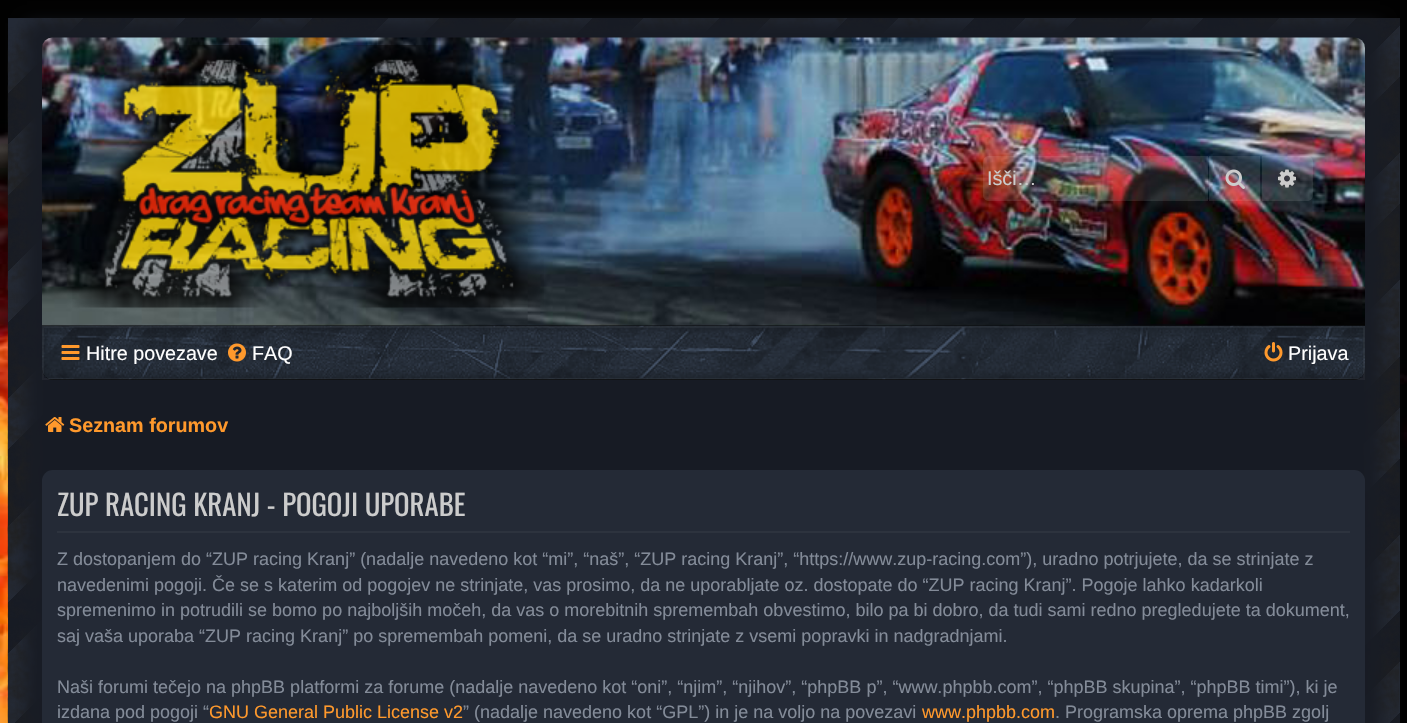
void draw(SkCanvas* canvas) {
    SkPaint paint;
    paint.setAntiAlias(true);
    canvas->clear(0xFFFFFFFF);
    canvas->drawImageRect(SkImages::DeferredFromEncodedData(SkData::MakeFromFileName("img1.png")), SkRect::MakeXYWH(0, 0, 1407, 723), SkSamplingOptions());
    {
        const SkColor colors[] = {0xFF242A36, 0xFF242A36, 0xFF171B24, 0xFF171B24, 0xFF242A36, 0xFF242A36, 0xFF171B24, 0xFF171B24, 0xFF242A36, 0xFF242A36, 0xFF171B24, 0xFF171B24, 0xFF242A36, 0xFF242A36, 0xFF171B24, 0xFF171B24, 0xFF242A36, 0xFF242A36, 0xFF171B24, 0xFF171B24, 0xFF242A36, 0xFF242A36, 0xFF171B24, 0xFF171B24, 0xFF242A36, 0xFF242A36, 0xFF171B24, 0xFF171B24, 0xFF242A36, 0xFF242A36, 0xFF171B24, 0xFF171B24, 0xFF242A36, 0xFF242A36, 0xFF171B24, 0xFF171B24, 0xFF242A36, 0xFF242A36, 0xFF171B24, 0xFF171B24, 0xFF242A36, 0xFF242A36, 0xFF171B24, 0xFF171B24, 0xFF242A36, 0xFF242A36, 0xFF171B24, 0xFF171B24, 0xFF242A36, 0xFF242A36, 0xFF171B24, 0xFF171B24, 0xFF242A36, 0xFF242A36, 0xFF171B24, 0xFF171B24, 0xFF242A36, 0xFF242A36, 0xFF171B24, 0xFF171B24, 0xFF242A36, 0xFF242A36, 0xFF171B24, 0xFF171B24, 0xFF242A36, 0xFF242A36, 0xFF171B24, 0xFF171B24, 0xFF242A36, 0xFF242A36, 0xFF171B24, 0xFF171B24, 0xFF242A36, 0xFF242A36, 0xFF171B24, 0xFF171B24, 0xFF242A36, 0xFF242A36, 0xFF171B24, 0xFF171B24};
        const float stops[] = {0, 0.03f, 0.03f, 0.05f, 0.05f, 0.07f, 0.07f, 0.1f, 0.1f, 0.12f, 0.12f, 0.15f, 0.15f, 0.17f, 0.17f, 0.2f, 0.2f, 0.23f, 0.23f, 0.25f, 0.25f, 0.28f, 0.28f, 0.3f, 0.3f, 0.33f, 0.33f, 0.35f, 0.35f, 0.38f, 0.38f, 0.4f, 0.4f, 0.42f, 0.42f, 0.45f, 0.45f, 0.47f, 0.47f, 0.5f, 0.5f, 0.53f, 0.53f, 0.55f, 0.55f, 0.57f, 0.57f, 0.6f, 0.6f, 0.62f, 0.62f, 0.65f, 0.65f, 0.68f, 0.68f, 0.7f, 0.7f, 0.72f, 0.72f, 0.75f, 0.75f, 0.78f, 0.78f, 0.8f, 0.8f, 0.82f, 0.82f, 0.85f, 0.85f, 0.88f, 0.88f, 0.9f, 0.9f, 0.93f, 0.93f, 0.95f, 0.95f, 0.97f, 0.97f, 1};
        const SkPoint ends[] = {{91, -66}, {1364, 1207}};
        paint.setShader(SkGradientShader::MakeLinear(ends, colors, stops, 80, SkTileMode::kClamp));
        paint.setAlpha(255);
    }
    canvas->drawRect(SkRect::MakeXYWH(8, 18, 1392, 705), paint);
    canvas->drawImageRect(SkImages::DeferredFromEncodedData(SkData::MakeFromFileName("img2.png")), SkRect::MakeXYWH(7, 18, 1393, 705), SkSamplingOptions());
    paint.setShader(nullptr);
    paint.setColor(0xFF171B24);
    paint.setMaskFilter(SkMaskFilter::MakeBlur(kNormal_SkBlurStyle, 7.5f));
    canvas->drawRect(SkRect::MakeXYWH(27, 23, 1353, 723), paint);
    paint.setMaskFilter(nullptr);
    paint.setColor(0xFF000000);
    canvas->drawPath(SkPathBuilder().moveTo(53, 38).lineTo(1354, 38).cubicTo(1360, 38, 1365, 43, 1365, 49).lineTo(1365, 326).lineTo(42, 326).lineTo(42, 49).cubicTo(42, 43, 47, 38, 53, 38).close().detach(), paint);
    canvas->drawImageRect(SkImages::DeferredFromEncodedData(SkData::MakeFromFileName("img3.png")), SkRect::MakeXYWH(42, 37, 1323, 289), SkSamplingOptions());
    canvas->drawImageRect(SkImages::DeferredFromEncodedData(SkData::MakeFromFileName("img4.png")), SkRect::MakeXYWH(72, 45, 472, 263), SkSamplingOptions());
    paint.setColor(0x1AFFFFFF);
    canvas->drawPath(SkPathBuilder().moveTo(989, 156).lineTo(1208, 156).lineTo(1208, 201).lineTo(989, 201).cubicTo(985.5f, 201, 983, 198.5f, 983, 195).lineTo(983, 162).cubicTo(983, 158.5f, 985.5f, 156, 989, 156).close().detach(), paint);
    SkFont font1(fontMgr->matchFamilyStyle("Liberation Sans", SkFontStyle::Normal()), 19.75f);
    font1.setSubpixel(true);
    paint.setColor(0xFFCCCCCC);
    canvas->drawString("Išči…", 987, 185, font1, paint);
    paint.setColor(0x1AFFFFFF);
    canvas->drawRect(SkRect::MakeXYWH(1209, 156, 51, 45), paint);
    canvas->drawImageRect(SkImages::DeferredFromEncodedData(SkData::MakeFromFileName("img5.png")), SkRect::MakeXYWH(1225, 169, 20, 20), SkSamplingOptions());
    canvas->drawPath(SkPathBuilder().moveTo(1262, 156).lineTo(1307, 156).cubicTo(1310.5f, 156, 1313, 158.5f, 1313, 162).lineTo(1313, 195).cubicTo(1313, 198.5f, 1310.5f, 201, 1307, 201).lineTo(1262, 201).close().detach(), paint);
    canvas->drawImageRect(SkImages::DeferredFromEncodedData(SkData::MakeFromFileName("img6.png")), SkRect::MakeXYWH(1278, 169, 18, 19), SkSamplingOptions());
    paint.setColor(0xFF000000);
    canvas->drawPath(SkPathBuilder().moveTo(42, 326).lineTo(1365, 326).lineTo(1365, 369).cubicTo(1365, 375, 1360, 380, 1354, 380).lineTo(53, 380).cubicTo(47, 380, 42, 375, 42, 369).close().detach(), paint);
    canvas->drawImageRect(SkImages::DeferredFromEncodedData(SkData::MakeFromFileName("img7.png")), SkRect::MakeXYWH(42, 325, 1323, 55), SkSamplingOptions());
    paint.setStyle(SkPaint::kStroke_Style);
    paint.setStrokeWidth(2);
    paint.setColor(0x0AFFFFFF);
    canvas->drawRect(SkRect::MakeXYWH(43, 327, 1321, 52), paint);
    canvas->drawImageRect(SkImages::DeferredFromEncodedData(SkData::MakeFromFileName("img8.png")), SkRect::MakeXYWH(61, 345, 19, 15), SkSamplingOptions());
    paint.setStyle(SkPaint::kFill_Style);
    paint.setColor(0xFFFFFFFF);
    canvas->drawString("Hitre povezave", 86, 360, font1, paint);
    canvas->drawImageRect(SkImages::DeferredFromEncodedData(SkData::MakeFromFileName("img9.png")), SkRect::MakeXYWH(228, 343, 18, 19), SkSamplingOptions());
    canvas->drawString("FAQ", 252, 360, font1, paint);
    canvas->drawImageRect(SkImages::DeferredFromEncodedData(SkData::MakeFromFileName("img10.png")), SkRect::MakeXYWH(1264, 342, 19, 20), SkSamplingOptions());
    canvas->drawString("Prijava", 1288, 360, font1, paint);
    canvas->drawImageRect(SkImages::DeferredFromEncodedData(SkData::MakeFromFileName("img11.png")), SkRect::MakeXYWH(45, 417, 20, 15), SkSamplingOptions());
    SkFont font2(fontMgr->matchFamilyStyle("Liberation Sans", SkFontStyle::Bold()), 19.75f);
    font2.setSubpixel(true);
    paint.setColor(0xFFFF992C);
    canvas->drawString("Seznam forumov", 69, 432, font2, paint);
    paint.setColor(0xFF242A36);
    canvas->drawRoundRect(SkRect::MakeXYWH(42, 470, 1323, 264), 11, 11, paint);
    paint.setColor(0xFF2D333E);
    canvas->drawRect(SkRect::MakeXYWH(57, 531, 1293, 2), paint);
    SkFont font3(fontMgr->matchFamilyStyle("Oswald", SkFontStyle::Normal()), 28.75f);
    font3.setSubpixel(true);
    paint.setColor(0xFFCCCCCC);
    canvas->drawString("ZUP RACING KRANJ - POGOJI UPORABE", 57, 516, font3, paint);
    SkFont font4(fontMgr->matchFamilyStyle("Liberation Sans", SkFontStyle::Normal()), 18);
    font4.setSubpixel(true);
    paint.setColor(0xFF838B98);
    canvas->drawString("Z dostopanjem do “ZUP racing Kranj” (nadalje navedeno kot “mi”, “naš”, “ZUP racing Kranj”, “https://www.zup-racing.com”), uradno potrjujete, da se strinjate z", 57, 565, font4, paint);
    canvas->drawString("navedenimi pogoji. Če se s katerim od pogojev ne strinjate, vas prosimo, da ne uporabljate oz. dostopate do “ZUP racing Kranj”. Pogoje lahko kadarkoli", 57, 591, font4, paint);
    canvas->drawString("spremenimo in potrudili se bomo po najboljših močeh, da vas o morebitnih spremembah obvestimo, bilo pa bi dobro, da tudi sami redno pregledujete ta dokument,", 57, 616, font4, paint);
    canvas->drawString("saj vaša uporaba “ZUP racing Kranj” po spremembah pomeni, da se uradno strinjate z vsemi popravki in nadgradnjami.", 57, 642, font4, paint);
    canvas->drawString("Naši forumi tečejo na phpBB platformi za forume (nadalje navedeno kot “oni”, “njim”, “njihov”, “phpBB p”, “www.phpbb.com”, “phpBB skupina”, “phpBB timi”), ki je", 57, 693, font4, paint);
    canvas->drawString("izdana pod pogoji “", 57, 718, font4, paint);
    paint.setColor(0xFFFF992C);
    canvas->drawString("GNU General Public License v2", 209, 718, font4, paint);
    paint.setColor(0xFF838B98);
    canvas->drawString("” (nadalje navedeno kot “GPL”) in je na voljo na povezavi", 463, 718, font4, paint);
    paint.setColor(0xFFFF992C);
    canvas->drawString("www.phpbb.com", 922, 718, font4, paint);
    paint.setColor(0xFF838B98);
    canvas->drawString(". Programska oprema phpBB zgolj", 1055, 718, font4, paint);
}
